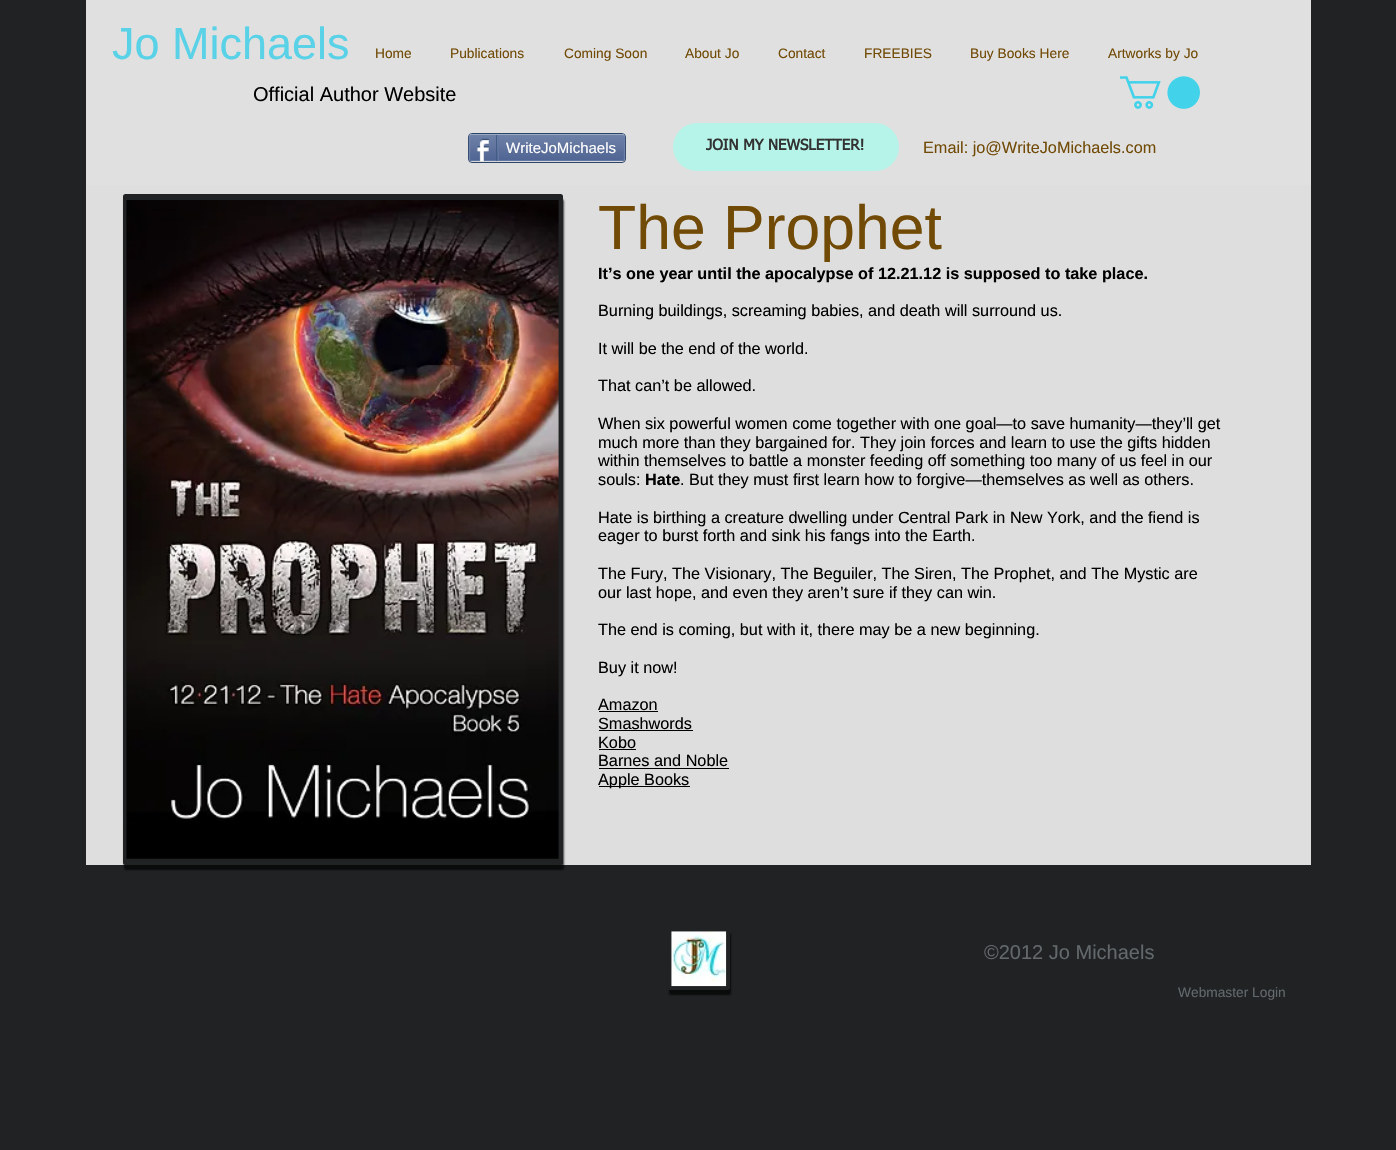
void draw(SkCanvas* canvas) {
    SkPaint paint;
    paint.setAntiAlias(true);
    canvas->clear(0xFF202223);
    paint.setColor(0xFFE0E0E0);
    canvas->drawRect(SkRect::MakeXYWH(86, 0, 1225, 185), paint);
    SkFont font1(fontMgr->matchFamilyStyle("Liberation Sans", SkFontStyle::Normal()), 45);
    font1.setSubpixel(true);
    paint.setColor(0xFF59D2E7);
    canvas->drawString("Jo Michaels", 112, 59, font1, paint);
    SkFont font2(fontMgr->matchFamilyStyle("Liberation Sans", SkFontStyle::Normal()), 13.75f);
    font2.setSubpixel(true);
    paint.setColor(0xFF714A05);
    canvas->drawString("Home", 375, 58, font2, paint);
    canvas->drawString("Publications", 450, 58, font2, paint);
    canvas->drawString("Coming Soon", 564, 58, font2, paint);
    canvas->drawString("About Jo", 685, 58, font2, paint);
    canvas->drawString("Contact", 778, 58, font2, paint);
    canvas->drawString("FREEBIES", 864, 58, font2, paint);
    canvas->drawString("Buy Books Here", 970, 58, font2, paint);
    canvas->drawString("Artworks by Jo", 1108, 58, font2, paint);
    SkFont font3(fontMgr->matchFamilyStyle("Liberation Sans", SkFontStyle::Normal()), 20);
    font3.setSubpixel(true);
    paint.setColor(0xFF000000);
    canvas->drawString("Official Author Website", 253, 101, font3, paint);
    canvas->drawImageRect(SkImages::DeferredFromEncodedData(SkData::MakeFromFileName("img1.png")), SkRect::MakeXYWH(1120, 76, 80, 33), SkSamplingOptions());
    paint.setStyle(SkPaint::kStroke_Style);
    paint.setStrokeWidth(1);
    paint.setColor(0xFF2D4565);
    canvas->drawRoundRect(SkRect::MakeXYWH(468.5f, 133.5f, 157, 29), 3.5f, 3.5f, paint);
    canvas->drawImageRect(SkImages::DeferredFromEncodedData(SkData::MakeFromFileName("img2.png")), SkRect::MakeXYWH(468, 135, 157, 27), SkSamplingOptions());
    paint.setStrokeWidth(1.2f);
    paint.setColor(0xFF9AABC6);
    canvas->drawPath(SkPathBuilder().moveTo(470, 135).lineTo(471, 134.5f).lineTo(622.5f, 134.5f).lineTo(624, 135).detach(), paint);
    paint.setColor(0xFF6F83AD);
    canvas->drawPath(SkPathBuilder().moveTo(624, 135).lineTo(624.5f, 136).lineTo(624.5f, 159).lineTo(624, 160).detach(), paint);
    paint.setColor(0xFF6176A3);
    canvas->drawPath(SkPathBuilder().moveTo(624, 160).lineTo(622.5f, 160.5f).lineTo(471, 160.5f).lineTo(470, 160).detach(), paint);
    paint.setColor(0xFF6F83AD);
    canvas->drawPath(SkPathBuilder().moveTo(470, 160).lineTo(469.5f, 159).lineTo(469.5f, 136).lineTo(470, 135).detach(), paint);
    canvas->drawImageRect(SkImages::DeferredFromEncodedData(SkData::MakeFromFileName("img3.png")), SkRect::MakeXYWH(476, 138, 13, 24), SkSamplingOptions());
    paint.setStyle(SkPaint::kFill_Style);
    paint.setColor(0xFF425E85);
    canvas->drawRect(SkRect::MakeXYWH(496, 135, 1, 26), paint);
    SkFont font4(fontMgr->matchFamilyStyle("Liberation Sans", SkFontStyle::Normal()), 15);
    font4.setSubpixel(true);
    paint.setColor(0xFFFFFFFF);
    canvas->drawString("WriteJoMichaels", 506, 153, font4, paint);
    paint.setColor(0xFF6176A3);
    canvas->drawRect(SkRect::MakeXYWH(498, 135, 1, 25), paint);
    paint.setColor(0xFFB6F3E8);
    canvas->drawRoundRect(SkRect::MakeXYWH(673, 123, 226, 48), 24, 24, paint);
    SkFont font5(fontMgr->matchFamilyStyle("tahoma", SkFontStyle::Bold()), 15);
    font5.setSubpixel(true);
    paint.setColor(0xFF323232);
    canvas->drawString("JOIN MY NEWSLETTER!", 706, 150, font5, paint);
    SkFont font6(fontMgr->matchFamilyStyle("Liberation Sans", SkFontStyle::Normal()), 16.25f);
    font6.setSubpixel(true);
    paint.setColor(0xFF714A05);
    canvas->drawString("Email: jo@WriteJoMichaels.com", 923, 153, font6, paint);
    paint.setColor(0xFFDEDEDE);
    canvas->drawRect(SkRect::MakeXYWH(86, 185, 1225, 680), paint);
    paint.setColor(0xB3000000);
    paint.setMaskFilter(SkMaskFilter::MakeBlur(kNormal_SkBlurStyle, 1));
    canvas->drawRoundRect(SkRect::MakeXYWH(124, 199, 440, 671), 2.5f, 2.5f, paint);
    paint.setMaskFilter(nullptr);
    paint.setColor(0xFF202223);
    canvas->drawRoundRect(SkRect::MakeXYWH(125, 196, 436, 667), 0.5f, 0.5f, paint);
    paint.setStyle(SkPaint::kStroke_Style);
    paint.setStrokeWidth(4);
    canvas->drawRoundRect(SkRect::MakeXYWH(125, 196, 436, 667), 0.5f, 0.5f, paint);
    canvas->drawImageRect(SkImages::DeferredFromEncodedData(SkData::MakeFromFileName("img4.png")), SkRect::MakeXYWH(126, 200, 433, 659), SkSamplingOptions());
    SkFont font7(fontMgr->matchFamilyStyle("Liberation Sans", SkFontStyle::Normal()), 62.5f);
    font7.setSubpixel(true);
    paint.setStyle(SkPaint::kFill_Style);
    paint.setColor(0xFF714A05);
    canvas->drawString("The Prophet", 598, 249, font7, paint);
    SkFont font8(fontMgr->matchFamilyStyle("Liberation Sans", SkFontStyle::Bold()), 16.25f);
    font8.setSubpixel(true);
    paint.setColor(0xFF000000);
    canvas->drawString("It’s one year until the apocalypse of 12.21.12 is supposed to take place.", 598, 279, font8, paint);
    canvas->drawString("Burning buildings, screaming babies, and death will surround us.", 598, 316, font6, paint);
    canvas->drawString("It will be the end of the world.", 598, 354, font6, paint);
    canvas->drawString("That can’t be allowed.", 598, 391, font6, paint);
    canvas->drawString("When six powerful women come together with one goal—to save humanity—they’ll get", 598, 429, font6, paint);
    canvas->drawString("much more than they bargained for. They join forces and learn to use the gifts hidden", 598, 448, font6, paint);
    canvas->drawString("within themselves to battle a monster feeding off something too many of us feel in our", 598, 466, font6, paint);
    canvas->drawString("souls:", 598, 485, font6, paint);
    canvas->drawString("Hate", 645, 485, font8, paint);
    canvas->drawString(". But they must first learn how to forgive—themselves as well as others.", 680, 485, font6, paint);
    canvas->drawString("Hate is birthing a creature dwelling under Central Park in New York, and the fiend is", 598, 523, font6, paint);
    canvas->drawString("eager to burst forth and sink his fangs into the Earth.", 598, 541, font6, paint);
    canvas->drawString("The Fury, The Visionary, The Beguiler, The Siren, The Prophet, and The Mystic are", 598, 579, font6, paint);
    canvas->drawString("our last hope, and even they aren’t sure if they can win.", 598, 598, font6, paint);
    canvas->drawString("The end is coming, but with it, there may be a new beginning.", 598, 635, font6, paint);
    canvas->drawString("Buy it now!", 598, 673, font6, paint);
    canvas->drawString("Amazon", 598, 710, font6, paint);
    canvas->drawRect(SkRect::MakeXYWH(599, 711, 59, 1), paint);
    canvas->drawString("Smashwords", 598, 729, font6, paint);
    canvas->drawRect(SkRect::MakeXYWH(599, 730, 94, 1), paint);
    canvas->drawString("Kobo", 598, 748, font6, paint);
    canvas->drawRect(SkRect::MakeXYWH(599, 749, 37, 1), paint);
    canvas->drawString("Barnes and Noble", 598, 766, font6, paint);
    canvas->drawRect(SkRect::MakeXYWH(599, 768, 130, 1), paint);
    canvas->drawRect(SkRect::MakeXYWH(599, 786, 91, 1), paint);
    canvas->drawString("Apple Books", 598, 785, font6, paint);
    paint.setColor(0xB3000000);
    paint.setMaskFilter(SkMaskFilter::MakeBlur(kNormal_SkBlurStyle, 1));
    canvas->drawRoundRect(SkRect::MakeXYWH(669, 933, 62, 62), 2.5f, 2.5f, paint);
    paint.setMaskFilter(nullptr);
    paint.setStyle(SkPaint::kStroke_Style);
    paint.setColor(0xFF202223);
    canvas->drawRoundRect(SkRect::MakeXYWH(670, 930, 58, 58), 0.5f, 0.5f, paint);
    canvas->drawImageRect(SkImages::DeferredFromEncodedData(SkData::MakeFromFileName("img5.png")), SkRect::MakeXYWH(671, 931, 56, 56), SkSamplingOptions());
    paint.setStyle(SkPaint::kFill_Style);
    paint.setColor(0xFF62686B);
    canvas->drawString("©2012 Jo Michaels", 984, 959, font3, paint);
    canvas->drawString("Webmaster Login", 1178, 997, font2, paint);
}
